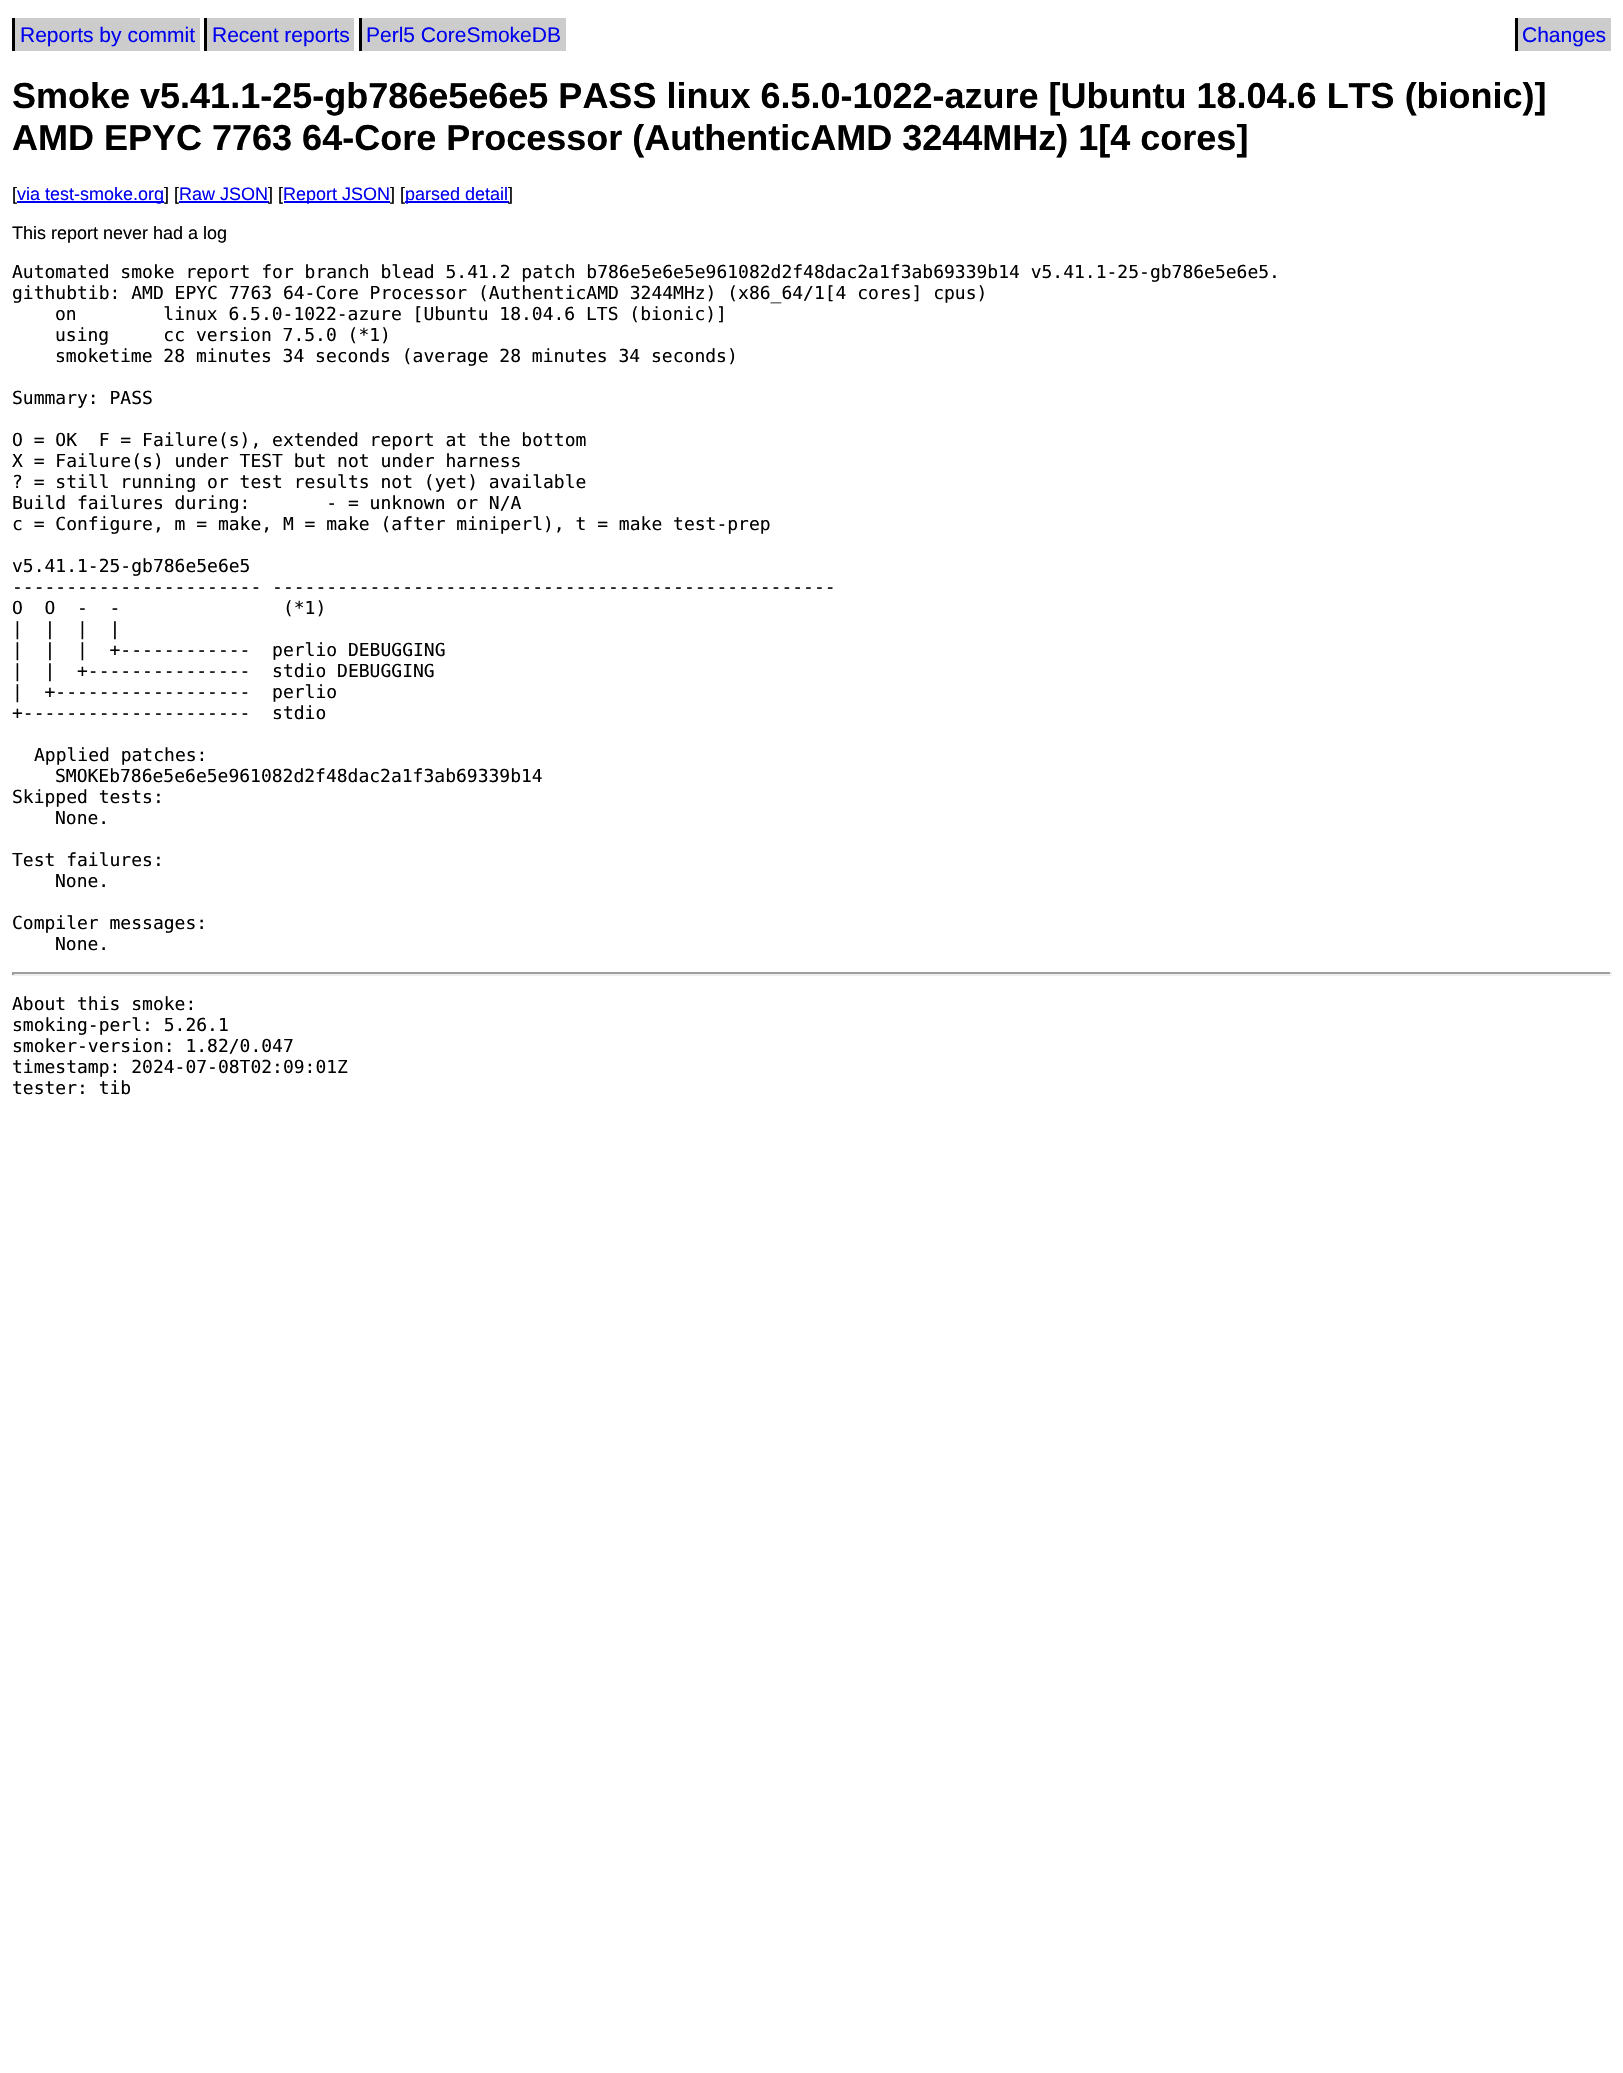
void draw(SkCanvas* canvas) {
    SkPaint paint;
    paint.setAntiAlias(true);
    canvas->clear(0xFFFFFFFF);
    paint.setColor(0xFFCCCCCC);
    canvas->drawRect(SkRect::MakeXYWH(15, 18, 185, 33), paint);
    paint.setColor(0xFF000000);
    canvas->drawRect(SkRect::MakeXYWH(12, 18, 3, 33), paint);
    SkFont font1(fontMgr->matchFamilyStyle("Liberation Sans", SkFontStyle::Normal()), 21);
    font1.setSubpixel(true);
    paint.setColor(0xFF0000EE);
    canvas->drawString("Reports by commit", 20, 42, font1, paint);
    paint.setColor(0xFFCCCCCC);
    canvas->drawRect(SkRect::MakeXYWH(207, 18, 147, 33), paint);
    paint.setColor(0xFF000000);
    canvas->drawRect(SkRect::MakeXYWH(204, 18, 3, 33), paint);
    paint.setColor(0xFF0000EE);
    canvas->drawString("Recent reports", 212, 42, font1, paint);
    paint.setColor(0xFFCCCCCC);
    canvas->drawRect(SkRect::MakeXYWH(362, 18, 204, 33), paint);
    paint.setColor(0xFF000000);
    canvas->drawRect(SkRect::MakeXYWH(359, 18, 3, 33), paint);
    paint.setColor(0xFF0000EE);
    canvas->drawString("Perl5 CoreSmokeDB", 366, 42, font1, paint);
    paint.setColor(0xFFCCCCCC);
    canvas->drawRect(SkRect::MakeXYWH(1518, 18, 93, 33), paint);
    paint.setColor(0xFF000000);
    canvas->drawRect(SkRect::MakeXYWH(1515, 18, 3, 33), paint);
    paint.setColor(0xFF0000EE);
    canvas->drawString("Changes", 1522, 42, font1, paint);
    SkFont font2(fontMgr->matchFamilyStyle("Liberation Sans", SkFontStyle::Bold()), 36);
    font2.setSubpixel(true);
    paint.setColor(0xFF000000);
    canvas->drawString("Smoke v5.41.1-25-gb786e5e6e5 PASS linux 6.5.0-1022-azure [Ubuntu 18.04.6 LTS (bionic)]", 12, 108, font2, paint);
    canvas->drawString("AMD EPYC 7763 64-Core Processor (AuthenticAMD 3244MHz) 1[4 cores]", 12, 150, font2, paint);
    SkFont font3(fontMgr->matchFamilyStyle("Liberation Sans", SkFontStyle::Normal()), 18);
    font3.setSubpixel(true);
    canvas->drawString("[", 12, 200, font3, paint);
    paint.setColor(0xFF0000EE);
    canvas->drawRect(SkRect::MakeXYWH(17, 201, 147, 2), paint);
    canvas->drawString("via test-smoke.org", 17, 200, font3, paint);
    paint.setColor(0xFF000000);
    canvas->drawString("] [", 164, 200, font3, paint);
    paint.setColor(0xFF0000EE);
    canvas->drawString("Raw JSON", 179, 200, font3, paint);
    canvas->drawRect(SkRect::MakeXYWH(179, 201, 90, 2), paint);
    paint.setColor(0xFF000000);
    canvas->drawString("] [", 268, 200, font3, paint);
    paint.setColor(0xFF0000EE);
    canvas->drawRect(SkRect::MakeXYWH(284, 201, 106, 2), paint);
    canvas->drawString("Report JSON", 283, 200, font3, paint);
    paint.setColor(0xFF000000);
    canvas->drawString("] [", 390, 200, font3, paint);
    paint.setColor(0xFF0000EE);
    canvas->drawRect(SkRect::MakeXYWH(405, 201, 104, 2), paint);
    canvas->drawString("parsed detail", 405, 200, font3, paint);
    paint.setColor(0xFF000000);
    canvas->drawString("]", 508, 200, font3, paint);
    canvas->drawString("This report never had a log", 12, 239, font3, paint);
    SkFont font4(fontMgr->matchFamilyStyle("DejaVu Sans Mono", SkFontStyle::Normal()), 18);
    font4.setSubpixel(true);
    canvas->drawString("Automated smoke report for branch blead 5.41.2 patch b786e5e6e5e961082d2f48dac2a1f3ab69339b14 v5.41.1-25-gb786e5e6e5.", 12, 278, font4, paint);
    canvas->drawString("githubtib: AMD EPYC 7763 64-Core Processor (AuthenticAMD 3244MHz) (x86_64/1[4 cores] cpus)", 12, 299, font4, paint);
    canvas->drawString("on        linux 6.5.0-1022-azure [Ubuntu 18.04.6 LTS (bionic)]", 55, 320, font4, paint);
    canvas->drawString("using     cc version 7.5.0 (*1)", 55, 341, font4, paint);
    canvas->drawString("smoketime 28 minutes 34 seconds (average 28 minutes 34 seconds)", 55, 362, font4, paint);
    canvas->drawString("Summary: PASS", 12, 404, font4, paint);
    canvas->drawString("O = OK  F = Failure(s), extended report at the bottom", 12, 446, font4, paint);
    canvas->drawString("X = Failure(s) under TEST but not under harness", 12, 467, font4, paint);
    canvas->drawString("? = still running or test results not (yet) available", 12, 488, font4, paint);
    canvas->drawString("Build failures during:       - = unknown or N/A", 12, 509, font4, paint);
    canvas->drawString("c = Configure, m = make, M = make (after miniperl), t = make test-prep", 12, 530, font4, paint);
    canvas->drawString("v5.41.1-25-gb786e5e6e5", 12, 572, font4, paint);
    canvas->drawString("----------------------- ----------------------------------------------------", 12, 593, font4, paint);
    canvas->drawString("O  O  -  -               (*1)", 12, 614, font4, paint);
    canvas->drawString("|  |  |  |", 12, 635, font4, paint);
    canvas->drawString("|  |  |  +------------  perlio DEBUGGING", 12, 656, font4, paint);
    canvas->drawString("|  |  +---------------  stdio DEBUGGING", 12, 677, font4, paint);
    canvas->drawString("|  +------------------  perlio", 12, 698, font4, paint);
    canvas->drawString("+---------------------  stdio", 12, 719, font4, paint);
    canvas->drawString("Applied patches:", 34, 761, font4, paint);
    canvas->drawString("SMOKEb786e5e6e5e961082d2f48dac2a1f3ab69339b14", 55, 782, font4, paint);
    canvas->drawString("Skipped tests:", 12, 803, font4, paint);
    canvas->drawString("None.", 55, 824, font4, paint);
    canvas->drawString("Test failures:", 12, 866, font4, paint);
    canvas->drawString("None.", 55, 887, font4, paint);
    canvas->drawString("Compiler messages:", 12, 929, font4, paint);
    canvas->drawString("None.", 55, 950, font4, paint);
    paint.setColor(0xFF9F9F9F);
    canvas->drawRect(SkRect::MakeXYWH(12, 972, 1599, 2), paint);
    paint.setColor(0xFFEEEEEE);
    canvas->drawRect(SkRect::MakeXYWH(1610, 972, 2, 3), paint);
    canvas->drawRect(SkRect::MakeXYWH(12, 974, 1599, 2), paint);
    paint.setColor(0xFF9F9F9F);
    canvas->drawRect(SkRect::MakeXYWH(12, 972, 2, 3), paint);
    paint.setColor(0xFF000000);
    canvas->drawString("About this smoke:", 12, 1010, font4, paint);
    canvas->drawString("smoking-perl: 5.26.1", 12, 1031, font4, paint);
    canvas->drawString("smoker-version: 1.82/0.047", 12, 1052, font4, paint);
    canvas->drawString("timestamp: 2024-07-08T02:09:01Z", 12, 1073, font4, paint);
    canvas->drawString("tester: tib", 12, 1094, font4, paint);
}
